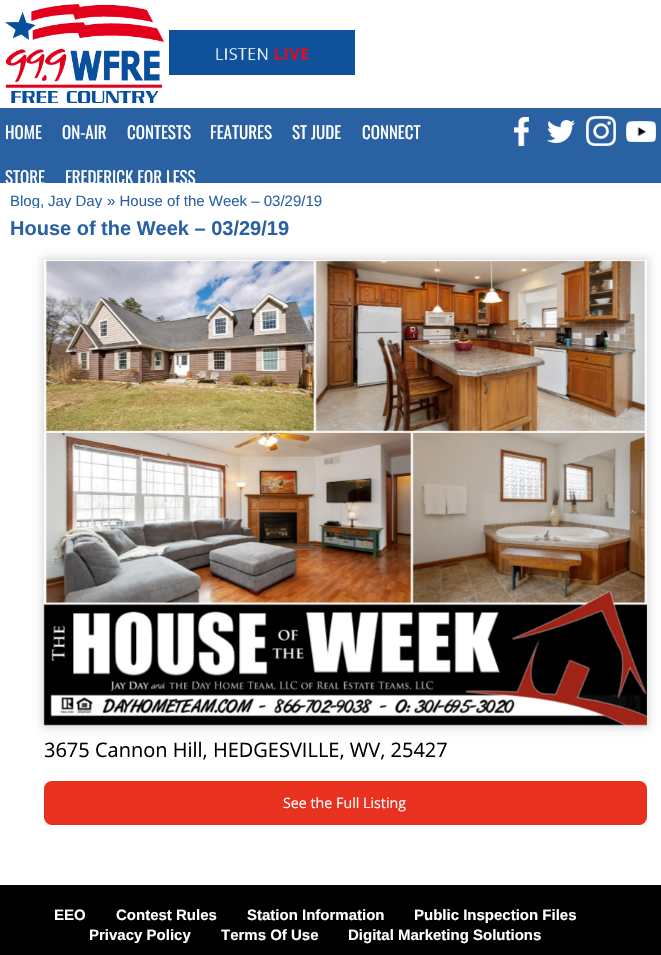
void draw(SkCanvas* canvas) {
    SkPaint paint;
    paint.setAntiAlias(true);
    canvas->clear(0xFFFFFFFF);
    canvas->drawImageRect(SkImages::DeferredFromEncodedData(SkData::MakeFromFileName("img1.png")), SkRect::MakeXYWH(5, 4, 159, 99), SkSamplingOptions());
    canvas->drawImageRect(SkImages::DeferredFromEncodedData(SkData::MakeFromFileName("img2.png")), SkRect::MakeXYWH(169, 30, 186, 45), SkSamplingOptions());
    paint.setColor(0xFF2A61A2);
    canvas->drawRect(SkRect::MakeXYWH(0, 108, 661, 75), paint);
    SkFont font1(fontMgr->matchFamilyStyle("Oswald", SkFontStyle::Normal()), 17);
    font1.setSubpixel(true);
    paint.setColor(0xFFFFFFFF);
    canvas->drawString("HOME", 5, 139, font1, paint);
    canvas->drawString("ON-AIR", 62, 139, font1, paint);
    canvas->drawString("CONTESTS", 127, 139, font1, paint);
    canvas->drawString("FEATURES", 210, 139, font1, paint);
    canvas->drawString("ST JUDE", 292, 139, font1, paint);
    canvas->drawString("CONNECT", 362, 139, font1, paint);
    canvas->drawString("STORE", 5, 184, font1, paint);
    canvas->drawString("FREDERICK FOR LESS", 65, 184, font1, paint);
    canvas->drawImageRect(SkImages::DeferredFromEncodedData(SkData::MakeFromFileName("img3.png")), SkRect::MakeXYWH(514, 117, 15, 29), SkSamplingOptions());
    canvas->drawImageRect(SkImages::DeferredFromEncodedData(SkData::MakeFromFileName("img4.png")), SkRect::MakeXYWH(547, 120, 28, 23), SkSamplingOptions());
    canvas->drawImageRect(SkImages::DeferredFromEncodedData(SkData::MakeFromFileName("img5.png")), SkRect::MakeXYWH(586, 116, 30, 30), SkSamplingOptions());
    canvas->drawImageRect(SkImages::DeferredFromEncodedData(SkData::MakeFromFileName("img6.png")), SkRect::MakeXYWH(626, 121, 30, 21), SkSamplingOptions());
    canvas->save();
    canvas->clipRect(SkRect::MakeXYWH(10, 193, 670, 15));
    SkFont font2(fontMgr->matchFamilyStyle("Liberation Sans", SkFontStyle::Normal()), 15);
    font2.setSubpixel(true);
    paint.setColor(0xFF2A61A2);
    canvas->drawString("Blog", 10, 206, font2, paint);
    canvas->restore();
    canvas->drawString(",", 40, 206, font2, paint);
    canvas->save();
    canvas->clipRect(SkRect::MakeXYWH(10, 193, 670, 15));
    canvas->drawString("Jay Day", 48, 206, font2, paint);
    canvas->restore();
    canvas->drawString("» House of the Week – 03/29/19", 107, 206, font2, paint);
    SkFont font3(fontMgr->matchFamilyStyle("Liberation Sans", SkFontStyle::Bold()), 20);
    font3.setSubpixel(true);
    canvas->drawString("House of the Week – 03/29/19", 10, 235, font3, paint);
    paint.setColor(0x26000000);
    paint.setMaskFilter(SkMaskFilter::MakeBlur(kNormal_SkBlurStyle, 4));
    canvas->drawRect(SkRect::MakeXYWH(42, 258, 607, 470), paint);
    paint.setMaskFilter(nullptr);
    canvas->drawImageRect(SkImages::DeferredFromEncodedData(SkData::MakeFromFileName("img7.png")), SkRect::MakeXYWH(43, 260, 604, 466), SkSamplingOptions());
    SkFont font4(fontMgr->matchFamilyStyle("Open Sans", SkFontStyle::Normal()), 20);
    font4.setSubpixel(true);
    paint.setColor(0xFF000000);
    canvas->drawString("3675 Cannon Hill, HEDGESVILLE, WV, 25427", 44, 757, font4, paint);
    paint.setColor(0xFFE8311F);
    canvas->drawRoundRect(SkRect::MakeXYWH(44, 781, 603, 44), 8, 8, paint);
    paint.setStyle(SkPaint::kStroke_Style);
    paint.setStrokeWidth(1);
    paint.setColor(0x0D000000);
    canvas->drawRect(SkRect::MakeXYWH(44.5f, 781.5f, 602, 43), paint);
    SkFont font5(fontMgr->matchFamilyStyle("Open Sans", SkFontStyle::Normal()), 14.25f);
    font5.setSubpixel(true);
    paint.setStyle(SkPaint::kFill_Style);
    paint.setColor(0xFFFFFFFF);
    canvas->drawString("See the Full Listing", 283, 808, font5, paint);
    paint.setColor(0xFF000000);
    canvas->drawRect(SkRect::MakeXYWH(0, 885, 661, 70), paint);
    SkFont font6(fontMgr->matchFamilyStyle("Liberation Sans", SkFontStyle::Bold()), 15);
    font6.setSubpixel(true);
    paint.setColor(0xFFFFFFFF);
    canvas->drawString("EEO", 54, 920, font6, paint);
    canvas->drawString("Contest Rules", 116, 920, font6, paint);
    canvas->drawString("Station Information", 247, 920, font6, paint);
    canvas->drawString("Public Inspection Files", 414, 920, font6, paint);
    canvas->drawString("Privacy Policy", 89, 940, font6, paint);
    canvas->drawString("Terms Of Use", 221, 940, font6, paint);
    canvas->drawString("Digital Marketing Solutions", 348, 940, font6, paint);
}
